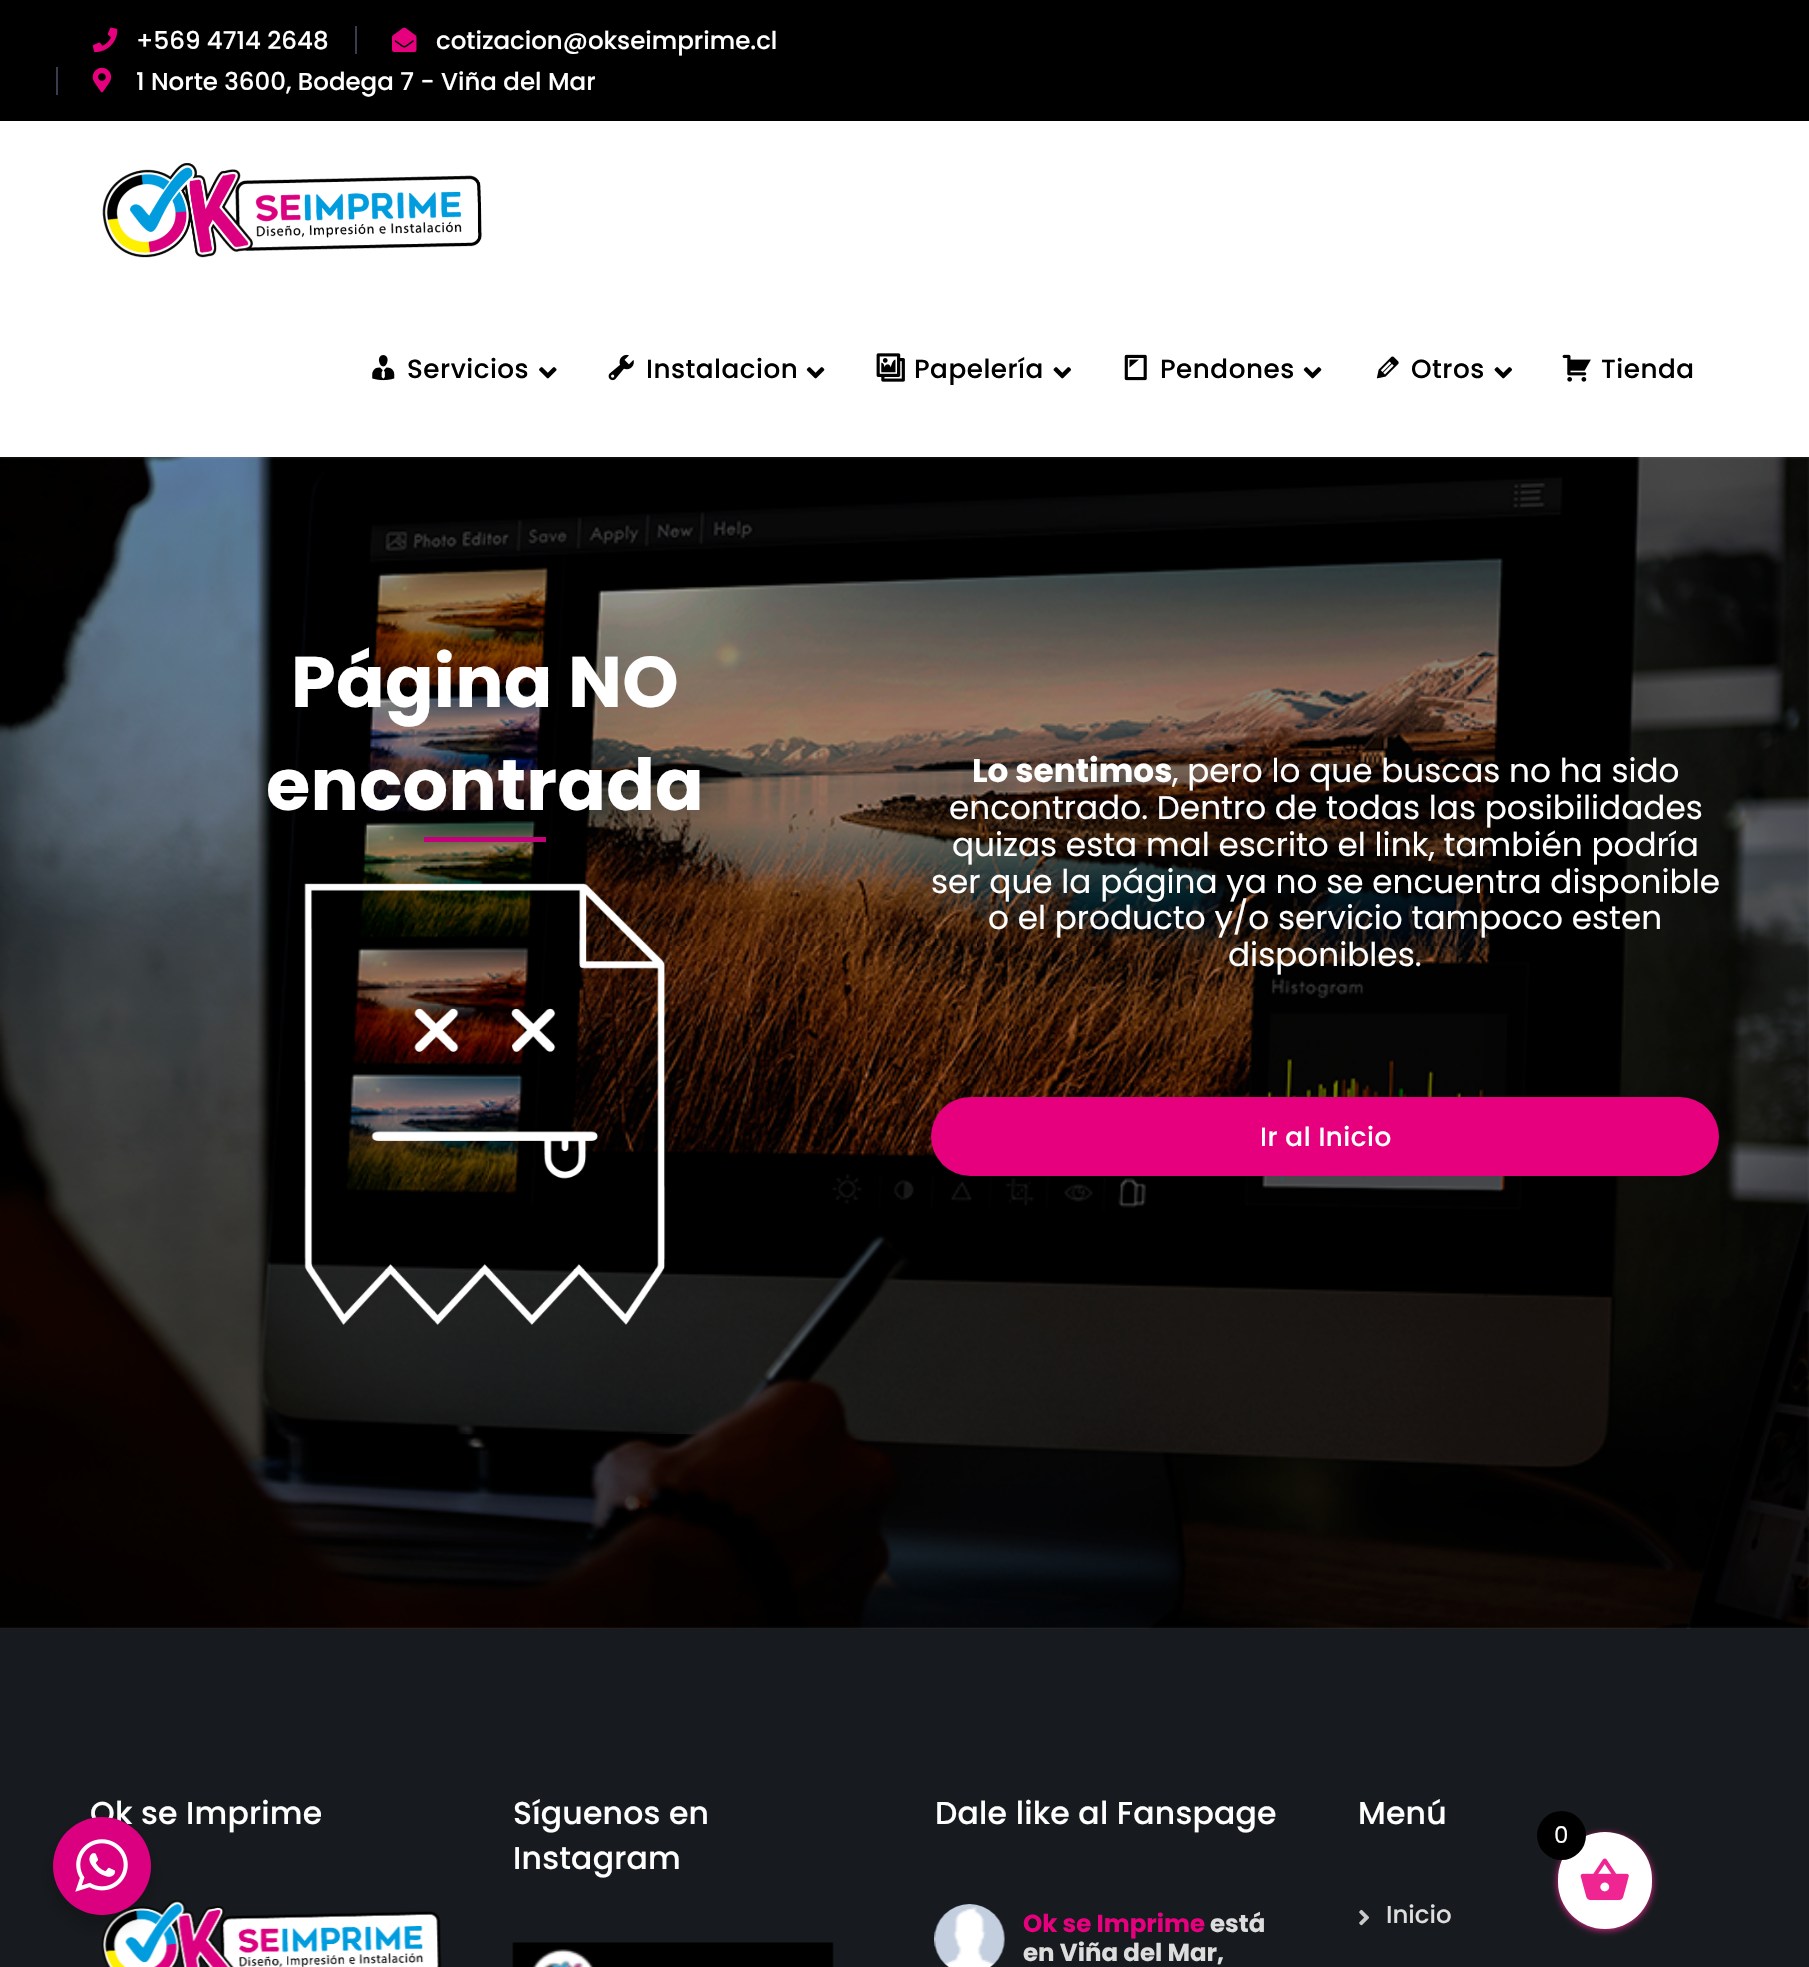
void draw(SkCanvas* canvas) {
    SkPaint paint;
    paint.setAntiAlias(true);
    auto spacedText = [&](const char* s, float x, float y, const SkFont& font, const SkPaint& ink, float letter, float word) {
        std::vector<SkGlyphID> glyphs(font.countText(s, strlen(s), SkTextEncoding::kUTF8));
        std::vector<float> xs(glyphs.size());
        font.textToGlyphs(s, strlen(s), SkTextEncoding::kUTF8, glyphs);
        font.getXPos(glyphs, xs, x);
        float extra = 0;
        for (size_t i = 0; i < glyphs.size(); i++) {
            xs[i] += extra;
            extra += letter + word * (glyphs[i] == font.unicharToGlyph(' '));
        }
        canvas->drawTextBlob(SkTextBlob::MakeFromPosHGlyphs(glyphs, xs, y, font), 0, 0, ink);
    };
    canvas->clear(0xFFFFFFFF);
    paint.setColor(0xFF000000);
    canvas->drawRect(SkRect::MakeXYWH(0, 0, 1809, 121), paint);
    canvas->drawImageRect(SkImages::DeferredFromEncodedData(SkData::MakeFromFileName("img1.png")), SkRect::MakeXYWH(92, 27, 26, 26), SkSamplingOptions());
    SkFont font1(fontMgr->matchFamilyStyle("Poppins", SkFontStyle(500, SkFontStyle::kNormal_Width, SkFontStyle::kUpright_Slant)), 24.5f);
    font1.setSubpixel(true);
    paint.setColor(0xFFFFFFFF);
    canvas->drawString("+569 4714 2648", 136, 49, font1, paint);
    paint.setColor(0xFF373D4D);
    canvas->drawRect(SkRect::MakeXYWH(355, 26, 2, 28), paint);
    canvas->drawImageRect(SkImages::DeferredFromEncodedData(SkData::MakeFromFileName("img2.png")), SkRect::MakeXYWH(392, 27, 25, 26), SkSamplingOptions());
    paint.setColor(0xFFFFFFFF);
    canvas->drawString("cotizacion@okseimprime.cl", 436, 49, font1, paint);
    paint.setColor(0xFF373D4D);
    canvas->drawRect(SkRect::MakeXYWH(56, 67, 2, 28), paint);
    canvas->drawImageRect(SkImages::DeferredFromEncodedData(SkData::MakeFromFileName("img3.png")), SkRect::MakeXYWH(92, 67, 20, 26), SkSamplingOptions());
    paint.setColor(0xFFFFFFFF);
    canvas->drawString("1 Norte 3600, Bodega 7 - Viña del Mar", 136, 90, font1, paint);
    canvas->drawImageRect(SkImages::DeferredFromEncodedData(SkData::MakeFromFileName("img4.png")), SkRect::MakeXYWH(102, 163, 380, 95), SkSamplingOptions());
    canvas->drawImageRect(SkImages::DeferredFromEncodedData(SkData::MakeFromFileName("img5.png")), SkRect::MakeXYWH(372, 355, 23, 26), SkSamplingOptions());
    SkFont font2(fontMgr->matchFamilyStyle("Poppins", SkFontStyle(500, SkFontStyle::kNormal_Width, SkFontStyle::kUpright_Slant)), 26.25f);
    font2.setSubpixel(true);
    paint.setColor(0xFF000000);
    spacedText("Servicios", 407, 378, font2, paint, 0.5f, 0);
    canvas->drawImageRect(SkImages::DeferredFromEncodedData(SkData::MakeFromFileName("img6.png")), SkRect::MakeXYWH(539, 367, 18, 12), SkSamplingOptions());
    canvas->drawImageRect(SkImages::DeferredFromEncodedData(SkData::MakeFromFileName("img7.png")), SkRect::MakeXYWH(608, 354, 26, 27), SkSamplingOptions());
    spacedText("Instalacion", 646, 378, font2, paint, 0.5f, 0);
    canvas->drawImageRect(SkImages::DeferredFromEncodedData(SkData::MakeFromFileName("img8.png")), SkRect::MakeXYWH(806, 367, 19, 12), SkSamplingOptions());
    canvas->drawImageRect(SkImages::DeferredFromEncodedData(SkData::MakeFromFileName("img9.png")), SkRect::MakeXYWH(876, 353, 29, 29), SkSamplingOptions());
    spacedText("Papelería", 914, 378, font2, paint, 0.5f, 0);
    canvas->drawImageRect(SkImages::DeferredFromEncodedData(SkData::MakeFromFileName("img10.png")), SkRect::MakeXYWH(1053, 367, 18, 12), SkSamplingOptions());
    canvas->drawImageRect(SkImages::DeferredFromEncodedData(SkData::MakeFromFileName("img11.png")), SkRect::MakeXYWH(1124, 354, 23, 27), SkSamplingOptions());
    spacedText("Pendones", 1160, 378, font2, paint, 0.5f, 0);
    canvas->drawImageRect(SkImages::DeferredFromEncodedData(SkData::MakeFromFileName("img8.png")), SkRect::MakeXYWH(1303, 367, 19, 12), SkSamplingOptions());
    canvas->drawImageRect(SkImages::DeferredFromEncodedData(SkData::MakeFromFileName("img12.png")), SkRect::MakeXYWH(1376, 356, 23, 23), SkSamplingOptions());
    spacedText("Otros", 1411, 378, font2, paint, 0.5f, 0);
    canvas->drawImageRect(SkImages::DeferredFromEncodedData(SkData::MakeFromFileName("img10.png")), SkRect::MakeXYWH(1494, 367, 18, 12), SkSamplingOptions());
    canvas->drawImageRect(SkImages::DeferredFromEncodedData(SkData::MakeFromFileName("img13.png")), SkRect::MakeXYWH(1562, 354, 29, 28), SkSamplingOptions());
    spacedText("Tienda", 1601, 378, font2, paint, 0.5f, 0);
    canvas->drawImageRect(SkImages::DeferredFromEncodedData(SkData::MakeFromFileName("img14.png")), SkRect::MakeXYWH(0, 457, 1809, 1172), SkSamplingOptions());
    SkFont font3(fontMgr->matchFamilyStyle("Poppins", SkFontStyle::Bold()), 71.75f);
    font3.setSubpixel(true);
    paint.setColor(0xFFFFFFFF);
    spacedText("Página NO", 291, 707, font3, paint, 0.2f, 0);
    spacedText("encontrada", 266, 810, font3, paint, 0.2f, 0);
    paint.setColor(0xFFC4007A);
    canvas->drawRect(SkRect::MakeXYWH(424, 837, 122, 5), paint);
    canvas->drawImageRect(SkImages::DeferredFromEncodedData(SkData::MakeFromFileName("img15.png")), SkRect::MakeXYWH(304, 883, 362, 442), SkSamplingOptions());
    SkFont font4(fontMgr->matchFamilyStyle("Poppins", SkFontStyle::Bold()), 32.7f);
    font4.setSubpixel(true);
    paint.setColor(0xFFFFFFFF);
    canvas->drawString("Lo sentimos", 972, 782, font4, paint);
    SkFont font5(fontMgr->matchFamilyStyle("Poppins", SkFontStyle::Normal()), 32.7f);
    font5.setSubpixel(true);
    canvas->drawString(", pero lo que buscas no ha sido", 1172, 782, font5, paint);
    canvas->drawString("encontrado. Dentro de todas las posibilidades", 949, 819, font5, paint);
    canvas->drawString("quizas esta mal escrito el link, también podría", 952, 856, font5, paint);
    canvas->drawString("ser que la página ya no se encuentra disponible", 931, 893, font5, paint);
    canvas->drawString("o el producto y/o servicio tampoco esten", 988, 929, font5, paint);
    canvas->drawString("disponibles.", 1228, 966, font5, paint);
    paint.setColor(0xFFE6007E);
    canvas->drawRoundRect(SkRect::MakeXYWH(931, 1097, 788, 79), 39.5f, 39.5f, paint);
    paint.setColor(0xFFFFFFFF);
    spacedText("Ir al Inicio", 1260, 1146, font2, paint, 0.5f, 0);
    paint.setColor(0xFF171A1E);
    canvas->drawRect(SkRect::MakeXYWH(0, 1629, 1809, 338), paint);
    SkFont font6(fontMgr->matchFamilyStyle("Poppins", SkFontStyle(500, SkFontStyle::kNormal_Width, SkFontStyle::kUpright_Slant)), 31.5f);
    font6.setSubpixel(true);
    paint.setColor(0xFFFFFFFF);
    spacedText("Ok se Imprime", 90, 1824, font6, paint, 0.2f, 0);
    canvas->drawImageRect(SkImages::DeferredFromEncodedData(SkData::MakeFromFileName("img16.png")), SkRect::MakeXYWH(101, 1900, 341, 67), SkSamplingOptions());
    spacedText("Síguenos en", 513, 1824, font6, paint, 0.2f, 0);
    spacedText("Instagram", 513, 1869, font6, paint, 0.2f, 0);
    canvas->drawImageRect(SkImages::DeferredFromEncodedData(SkData::MakeFromFileName("img17.png")), SkRect::MakeXYWH(512, 1942, 322, 25), SkSamplingOptions());
    spacedText("Dale like al Fanspage", 935, 1824, font6, paint, 0.2f, 0);
    canvas->drawImageRect(SkImages::DeferredFromEncodedData(SkData::MakeFromFileName("img18.png")), SkRect::MakeXYWH(934, 1904, 71, 63), SkSamplingOptions());
    SkFont font7(fontMgr->matchFamilyStyle("Poppins", SkFontStyle::Bold()), 24.5f);
    font7.setSubpixel(true);
    paint.setColor(0xFFE6007E);
    canvas->drawString("Ok se Imprime", 1023, 1932, font7, paint);
    paint.setColor(0xFFDDDDDD);
    canvas->drawString("está", 1210, 1932, font7, paint);
    canvas->drawString("en Viña del Mar,", 1023, 1961, font7, paint);
    paint.setColor(0xFFFFFFFF);
    spacedText("Menú", 1358, 1824, font6, paint, 0.2f, 0);
    canvas->drawImageRect(SkImages::DeferredFromEncodedData(SkData::MakeFromFileName("img19.png")), SkRect::MakeXYWH(1359, 1909, 10, 17), SkSamplingOptions());
    paint.setColor(0xFFDDDDDD);
    canvas->drawString("Inicio", 1386, 1923, font1, paint);
    paint.setColor(0x24000000);
    paint.setMaskFilter(SkMaskFilter::MakeBlur(kNormal_SkBlurStyle, 7));
    canvas->drawRoundRect(SkRect::MakeXYWH(49, 1824, 105, 105), 52.5f, 52.5f, paint);
    paint.setMaskFilter(nullptr);
    paint.setColor(0xFFDA0080);
    canvas->drawCircle(102, 1866, 49, paint);
    canvas->drawImageRect(SkImages::DeferredFromEncodedData(SkData::MakeFromFileName("img20.png")), SkRect::MakeXYWH(75, 1839, 53, 53), SkSamplingOptions());
    paint.setColor(0xFFEF2691);
    paint.setMaskFilter(SkMaskFilter::MakeBlur(kNormal_SkBlurStyle, 3.5f));
    canvas->drawRoundRect(SkRect::MakeXYWH(1558, 1834, 94, 96), 47, 47, paint);
    paint.setMaskFilter(nullptr);
    paint.setColor(0xFFFFFFFF);
    canvas->drawRoundRect(SkRect::MakeXYWH(1558, 1832, 94, 97), 47, 47, paint);
    paint.setColor(0xFF000000);
    canvas->drawCircle(1561.5f, 1835.5f, 24.5f, paint);
    SkFont font8(fontMgr->matchFamilyStyle("Poppins", SkFontStyle::Normal()), 23);
    font8.setSubpixel(true);
    paint.setColor(0xFFFFFFFF);
    canvas->drawString("0", 1554, 1843, font8, paint);
    canvas->drawImageRect(SkImages::DeferredFromEncodedData(SkData::MakeFromFileName("img21.png")), SkRect::MakeXYWH(1580, 1858, 49, 43), SkSamplingOptions());
}
